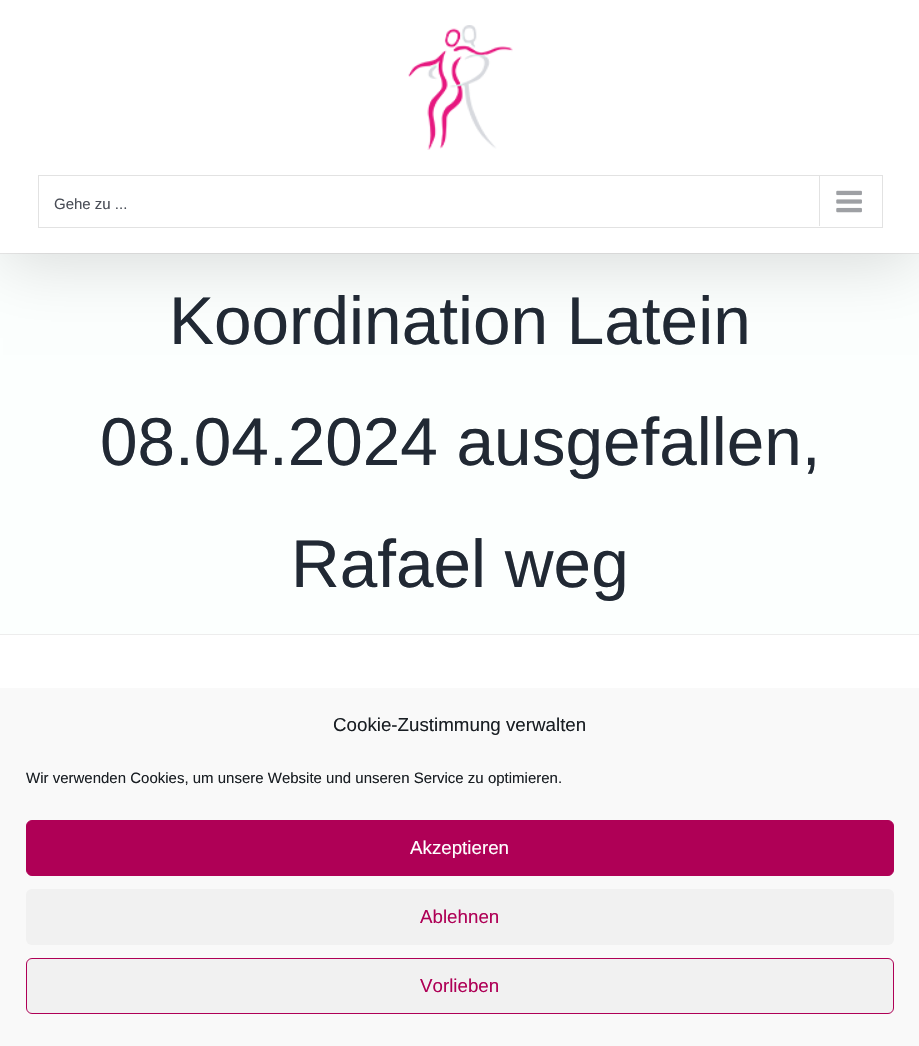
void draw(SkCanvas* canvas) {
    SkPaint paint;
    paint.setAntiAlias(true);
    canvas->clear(0xFFFFFFFF);
    paint.setColor(0xFFFCFFFE);
    canvas->drawRect(SkRect::MakeXYWH(0, 254, 919, 380), paint);
    paint.setColor(0xFFEDEDED);
    canvas->drawRect(SkRect::MakeXYWH(0, 253, 919, 1), paint);
    paint.setColor(0x24000000);
    paint.setMaskFilter(SkMaskFilter::MakeBlur(kNormal_SkBlurStyle, 31));
    canvas->drawRect(SkRect::MakeXYWH(3, 15, 915, 248), paint);
    paint.setMaskFilter(nullptr);
    paint.setColor(0xFFFFFFFF);
    canvas->drawRect(SkRect::MakeXYWH(0, 0, 919, 253), paint);
    canvas->drawImageRect(SkImages::DeferredFromEncodedData(SkData::MakeFromFileName("img1.png")), SkRect::MakeXYWH(408, 25, 105, 125), SkSamplingOptions());
    paint.setStyle(SkPaint::kStroke_Style);
    paint.setStrokeWidth(1);
    paint.setColor(0xFFE2E2E2);
    canvas->drawRect(SkRect::MakeXYWH(38.5f, 175.5f, 844, 52), paint);
    SkFont font1(fontMgr->matchFamilyStyle("Liberation Sans", SkFontStyle::Normal()), 15);
    font1.setSubpixel(true);
    paint.setStyle(SkPaint::kFill_Style);
    paint.setColor(0xFF4A4E57);
    canvas->drawString("Gehe zu ...", 54, 209, font1, paint);
    paint.setColor(0xFFE2E2E2);
    canvas->drawRect(SkRect::MakeXYWH(819, 176, 1, 50), paint);
    canvas->drawImageRect(SkImages::DeferredFromEncodedData(SkData::MakeFromFileName("img2.png")), SkRect::MakeXYWH(836, 190, 26, 23), SkSamplingOptions());
    paint.setColor(0xFFEDEDED);
    canvas->drawRect(SkRect::MakeXYWH(0, 634, 919, 1), paint);
    SkFont font2(fontMgr->matchFamilyStyle("Liberation Sans", SkFontStyle::Normal()), 67.5f);
    font2.setSubpixel(true);
    paint.setColor(0xFF212934);
    canvas->drawString("Koordination Latein", 169, 344, font2, paint);
    canvas->drawString("08.04.2024 ausgefallen,", 100, 465, font2, paint);
    canvas->drawString("Rafael weg", 291, 587, font2, paint);
    paint.setColor(0xFFF9F9F9);
    canvas->drawRect(SkRect::MakeXYWH(0, 688, 919, 358), paint);
    SkFont font3(fontMgr->matchFamilyStyle("Liberation Sans", SkFontStyle::Normal()), 18.75f);
    font3.setSubpixel(true);
    paint.setColor(0xFF191E23);
    canvas->drawString("Cookie-Zustimmung verwalten", 333, 731, font3, paint);
    canvas->drawString("Wir verwenden Cookies, um unsere Website und unseren Service zu optimieren.", 26, 783, font1, paint);
    paint.setColor(0xFFAF0056);
    canvas->drawRoundRect(SkRect::MakeXYWH(26.5f, 820.5f, 867, 55), 5.5f, 5.5f, paint);
    paint.setStyle(SkPaint::kStroke_Style);
    canvas->drawRoundRect(SkRect::MakeXYWH(26.5f, 820.5f, 867, 55), 5.5f, 5.5f, paint);
    paint.setStyle(SkPaint::kFill_Style);
    paint.setColor(0xFFFFFFFF);
    canvas->drawString("Akzeptieren", 410, 854, font3, paint);
    paint.setColor(0xFFF1F1F1);
    canvas->drawRoundRect(SkRect::MakeXYWH(26, 889, 868, 56), 6, 6, paint);
    paint.setColor(0xFFAF0056);
    canvas->drawString("Ablehnen", 420, 923, font3, paint);
    paint.setColor(0xFFF1F1F1);
    canvas->drawRoundRect(SkRect::MakeXYWH(26.5f, 958.5f, 867, 55), 5.5f, 5.5f, paint);
    paint.setStyle(SkPaint::kStroke_Style);
    paint.setColor(0xFFAF0056);
    canvas->drawRoundRect(SkRect::MakeXYWH(26.5f, 958.5f, 867, 55), 5.5f, 5.5f, paint);
    paint.setStyle(SkPaint::kFill_Style);
    canvas->drawString("Vorlieben", 420, 992, font3, paint);
}
